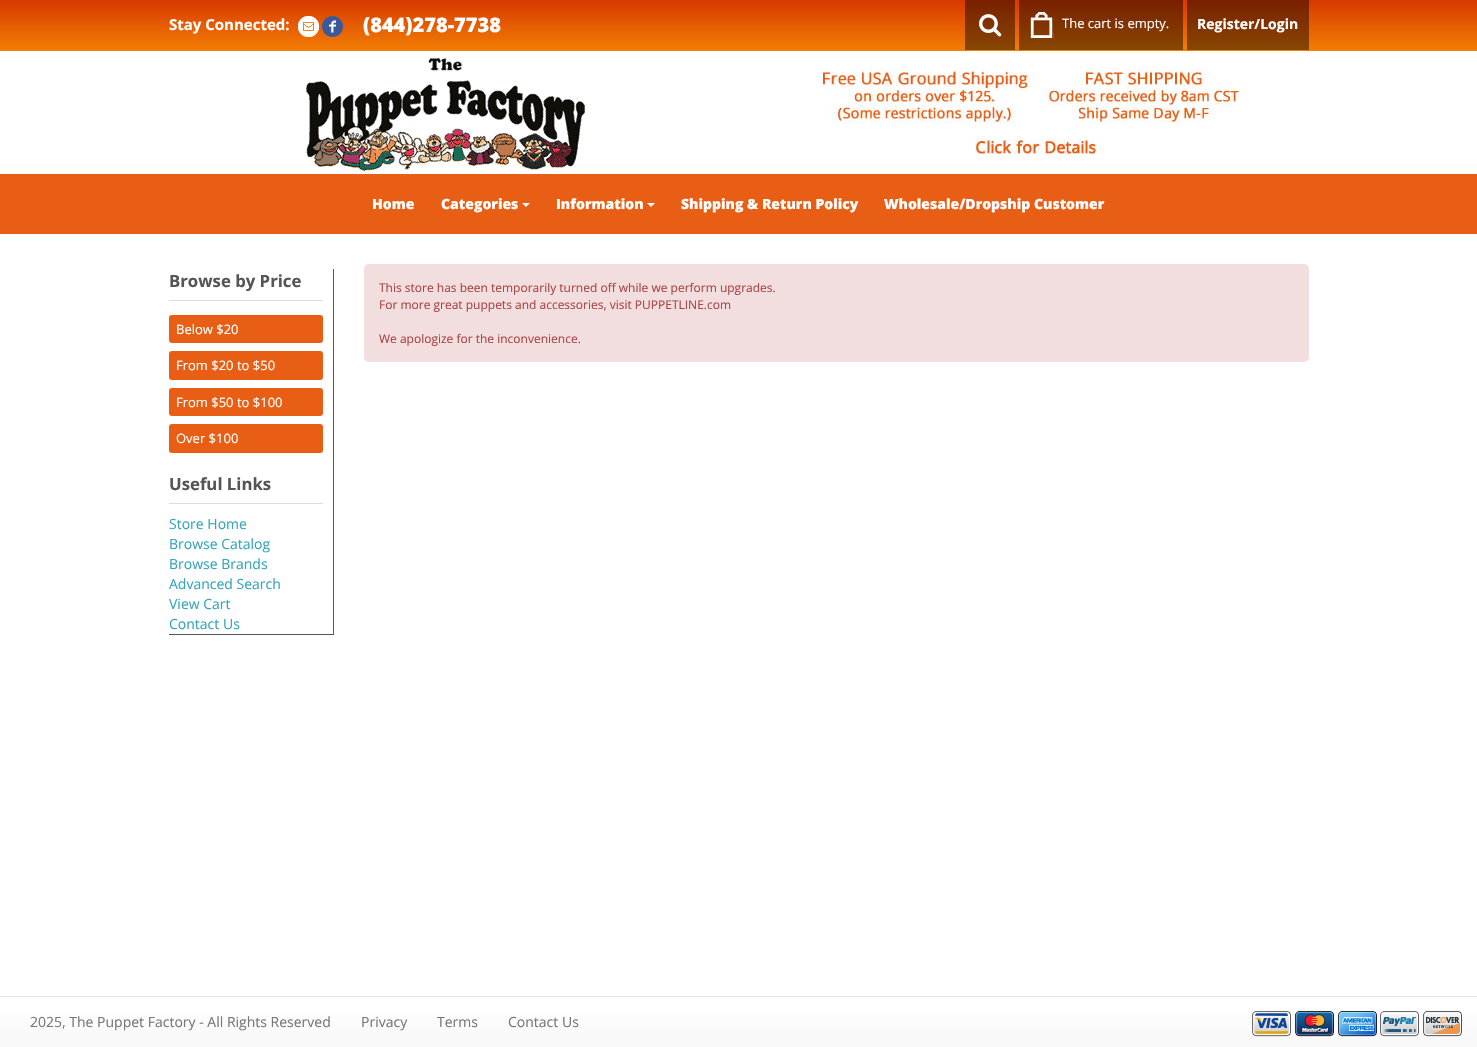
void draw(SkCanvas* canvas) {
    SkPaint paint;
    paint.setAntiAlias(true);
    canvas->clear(0xFFFFFFFF);
    {
        const SkColor colors[] = {0xFFD83900, 0xFFF27F04};
        const float stops[] = {0, 1};
        const SkPoint ends[] = {{739, 0}, {739, 51}};
        paint.setShader(SkGradientShader::MakeLinear(ends, colors, stops, 2, SkTileMode::kClamp));
        paint.setAlpha(255);
    }
    canvas->drawRect(SkRect::MakeXYWH(0, 0, 1477, 51), paint);
    {
        const SkColor colors[] = {0xFF792000, 0xFF884702};
        const float stops[] = {0, 1};
        const SkPoint ends[] = {{739, 0}, {739, 51}};
        paint.setShader(SkGradientShader::MakeLinear(ends, colors, stops, 2, SkTileMode::kClamp));
        paint.setAlpha(255);
    }
    canvas->drawRect(SkRect::MakeXYWH(1019, 0, 164, 50), paint);
    canvas->drawRect(SkRect::MakeXYWH(1187, 0, 122, 50), paint);
    canvas->drawRect(SkRect::MakeXYWH(965, 0, 50, 50), paint);
    SkFont font1(fontMgr->matchFamilyStyle("Open Sans", SkFontStyle::Bold()), 15);
    font1.setSubpixel(true);
    paint.setShader(nullptr);
    paint.setColor(0xFFFFFFFF);
    canvas->drawString("Stay Connected:", 169, 30, font1, paint);
    canvas->drawImageRect(SkImages::DeferredFromEncodedData(SkData::MakeFromFileName("img1.png")), SkRect::MakeXYWH(298, 16, 21, 21), SkSamplingOptions());
    canvas->drawImageRect(SkImages::DeferredFromEncodedData(SkData::MakeFromFileName("img2.png")), SkRect::MakeXYWH(322, 16, 21, 21), SkSamplingOptions());
    SkFont font2(fontMgr->matchFamilyStyle("Open Sans", SkFontStyle(800, SkFontStyle::kNormal_Width, SkFontStyle::kUpright_Slant)), 20);
    font2.setSubpixel(true);
    canvas->drawString("(844)278-7738", 363, 32, font2, paint);
    canvas->drawImageRect(SkImages::DeferredFromEncodedData(SkData::MakeFromFileName("img3.png")), SkRect::MakeXYWH(979, 14, 23, 23), SkSamplingOptions());
    canvas->drawImageRect(SkImages::DeferredFromEncodedData(SkData::MakeFromFileName("img4.png")), SkRect::MakeXYWH(1030, 11, 24, 27), SkSamplingOptions());
    SkFont font3(fontMgr->matchFamilyStyle("Open Sans", SkFontStyle::Normal()), 13);
    font3.setSubpixel(true);
    canvas->drawString("The cart is empty.", 1062, 28, font3, paint);
    SkFont font4(fontMgr->matchFamilyStyle("Open Sans", SkFontStyle::Bold()), 14);
    font4.setSubpixel(true);
    canvas->drawString("Register/Login", 1197, 29, font4, paint);
    canvas->drawImageRect(SkImages::DeferredFromEncodedData(SkData::MakeFromFileName("img5.png")), SkRect::MakeXYWH(305, 58, 281, 114), SkSamplingOptions());
    canvas->drawImageRect(SkImages::DeferredFromEncodedData(SkData::MakeFromFileName("img6.png")), SkRect::MakeXYWH(823, 67, 416, 87), SkSamplingOptions());
    paint.setColor(0xFFE85E14);
    canvas->drawRect(SkRect::MakeXYWH(0, 174, 1477, 60), paint);
    SkFont font5(fontMgr->matchFamilyStyle("Open Sans", SkFontStyle(800, SkFontStyle::kNormal_Width, SkFontStyle::kUpright_Slant)), 14);
    font5.setSubpixel(true);
    paint.setColor(0xFFFFFFFF);
    canvas->drawString("Home", 372, 209, font5, paint);
    canvas->drawString("Categories", 441, 209, font5, paint);
    canvas->drawPath(SkPathBuilder().moveTo(522, 203).lineTo(530, 203).lineTo(526, 207).close().detach(), paint);
    canvas->drawString("Information", 556, 209, font5, paint);
    canvas->drawPath(SkPathBuilder().moveTo(647, 203).lineTo(655, 203).lineTo(651, 207).close().detach(), paint);
    canvas->drawString("Shipping & Return Policy", 681, 209, font5, paint);
    canvas->drawString("Wholesale/Dropship Customer", 884, 209, font5, paint);
    paint.setColor(0xFF555555);
    canvas->drawRect(SkRect::MakeXYWH(333, 269, 1, 366), paint);
    canvas->drawRect(SkRect::MakeXYWH(169, 634, 165, 1), paint);
    paint.setColor(0xFFDDDDDD);
    canvas->drawRect(SkRect::MakeXYWH(169, 300, 154, 1), paint);
    SkFont font6(fontMgr->matchFamilyStyle("Open Sans", SkFontStyle::Bold()), 16.75f);
    font6.setSubpixel(true);
    paint.setColor(0xFF555555);
    canvas->drawString("Browse by Price", 169, 287, font6, paint);
    paint.setColor(0xFFE85E14);
    canvas->drawRoundRect(SkRect::MakeXYWH(169, 315, 154, 28), 3, 3, paint);
    paint.setColor(0xFFFFFFFF);
    canvas->drawString("Below $20", 176, 334, font3, paint);
    paint.setColor(0xFFE85E14);
    canvas->drawRoundRect(SkRect::MakeXYWH(169, 351, 154, 29), 3, 3, paint);
    paint.setColor(0xFFFFFFFF);
    canvas->drawString("From $20 to $50", 176, 370, font3, paint);
    paint.setColor(0xFFE85E14);
    canvas->drawRoundRect(SkRect::MakeXYWH(169, 388, 154, 28), 3, 3, paint);
    paint.setColor(0xFFFFFFFF);
    canvas->drawString("From $50 to $100", 176, 407, font3, paint);
    paint.setColor(0xFFE85E14);
    canvas->drawRoundRect(SkRect::MakeXYWH(169, 424, 154, 29), 3, 3, paint);
    paint.setColor(0xFFFFFFFF);
    canvas->drawString("Over $100", 176, 443, font3, paint);
    paint.setColor(0xFFDDDDDD);
    canvas->drawRect(SkRect::MakeXYWH(169, 503, 154, 1), paint);
    paint.setColor(0xFF555555);
    canvas->drawString("Useful Links", 169, 490, font6, paint);
    SkFont font7(fontMgr->matchFamilyStyle("Open Sans", SkFontStyle::Normal()), 14);
    font7.setSubpixel(true);
    paint.setColor(0xFF33A6B9);
    canvas->drawString("Store Home", 169, 529, font7, paint);
    canvas->drawString("Browse Catalog", 169, 549, font7, paint);
    canvas->drawString("Browse Brands", 169, 569, font7, paint);
    canvas->drawString("Advanced Search", 169, 589, font7, paint);
    canvas->drawString("View Cart", 169, 609, font7, paint);
    canvas->drawString("Contact Us", 169, 629, font7, paint);
    paint.setColor(0xFFF2DEDE);
    canvas->drawRoundRect(SkRect::MakeXYWH(364, 264, 945, 98), 5, 5, paint);
    SkFont font8(fontMgr->matchFamilyStyle("Open Sans", SkFontStyle::Normal()), 12);
    font8.setSubpixel(true);
    paint.setColor(0xFFA94442);
    canvas->drawString("This store has been temporarily turned off while we perform upgrades.", 379, 292, font8, paint);
    canvas->drawString("For more great puppets and accessories, visit PUPPETLINE.com", 379, 309, font8, paint);
    canvas->drawString("We apologize for the inconvenience.", 379, 343, font8, paint);
    {
        const SkColor colors[] = {0xFFFFFFFF, 0xFFF8F8F8};
        const float stops[] = {0, 1};
        const SkPoint ends[] = {{739, 997}, {739, 1047}};
        paint.setShader(SkGradientShader::MakeLinear(ends, colors, stops, 2, SkTileMode::kClamp));
        paint.setAlpha(255);
    }
    canvas->drawRect(SkRect::MakeXYWH(0, 1015, 1477, 32), paint);
    paint.setShader(nullptr);
    paint.setColor(0xFFE7E7E7);
    canvas->drawRect(SkRect::MakeXYWH(0, 996, 1477, 1), paint);
    paint.setColor(0xFF777777);
    canvas->drawString("2025, The Puppet Factory - All Rights Reserved", 30, 1027, font7, paint);
    canvas->drawString("Privacy", 361, 1027, font7, paint);
    canvas->drawString("Terms", 437, 1027, font7, paint);
    canvas->drawString("Contact Us", 508, 1027, font7, paint);
    canvas->drawImageRect(SkImages::DeferredFromEncodedData(SkData::MakeFromFileName("img7.png")), SkRect::MakeXYWH(1252, 1011, 39, 26), SkSamplingOptions());
    canvas->drawImageRect(SkImages::DeferredFromEncodedData(SkData::MakeFromFileName("img8.png")), SkRect::MakeXYWH(1295, 1011, 39, 26), SkSamplingOptions());
    canvas->drawImageRect(SkImages::DeferredFromEncodedData(SkData::MakeFromFileName("img9.png")), SkRect::MakeXYWH(1338, 1011, 39, 26), SkSamplingOptions());
    canvas->drawImageRect(SkImages::DeferredFromEncodedData(SkData::MakeFromFileName("img10.png")), SkRect::MakeXYWH(1380, 1011, 39, 26), SkSamplingOptions());
    canvas->drawImageRect(SkImages::DeferredFromEncodedData(SkData::MakeFromFileName("img11.png")), SkRect::MakeXYWH(1423, 1011, 39, 26), SkSamplingOptions());
}
